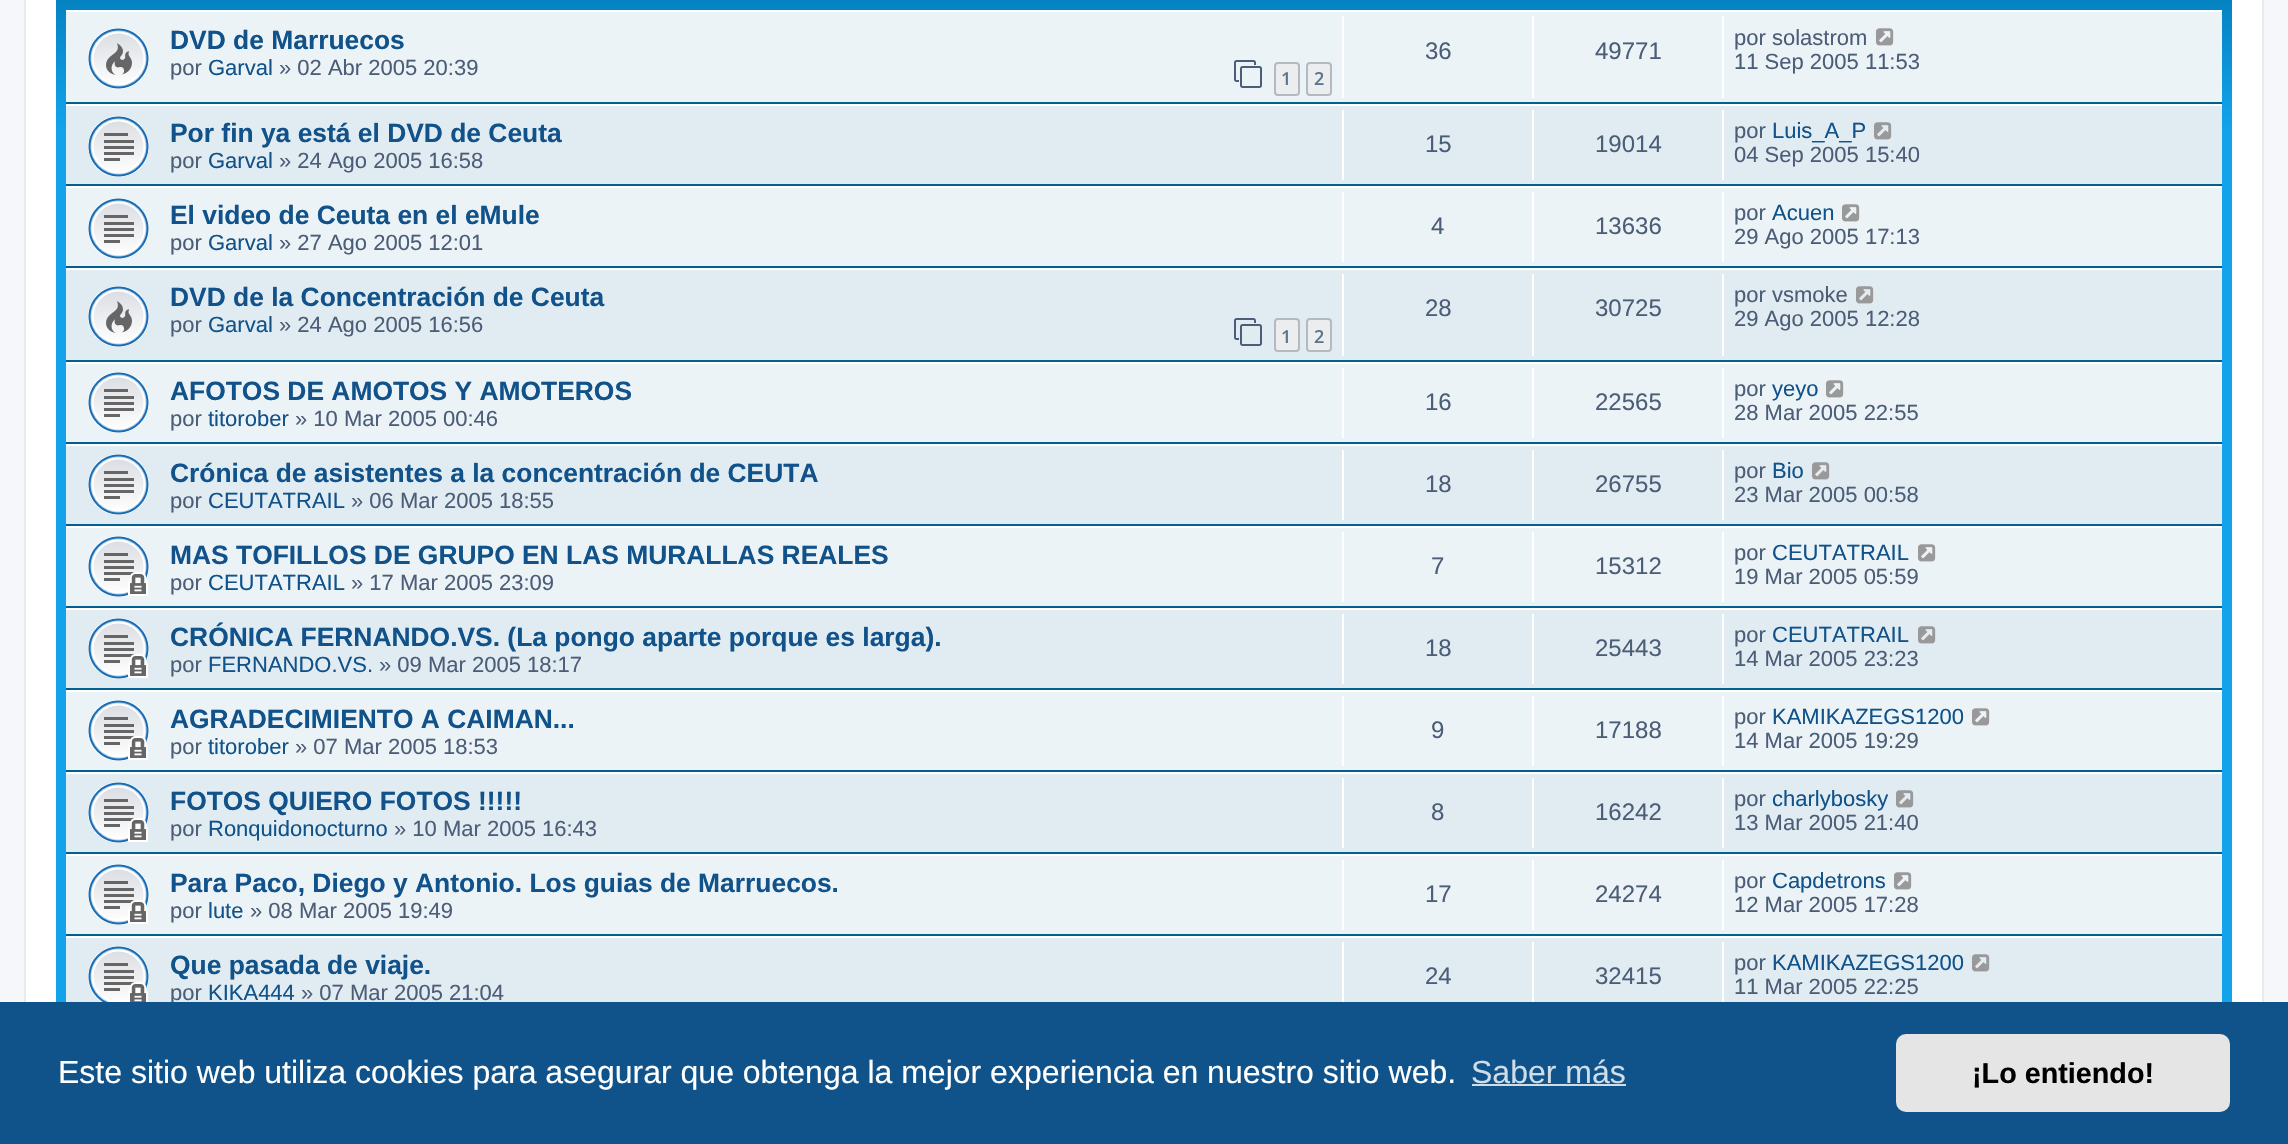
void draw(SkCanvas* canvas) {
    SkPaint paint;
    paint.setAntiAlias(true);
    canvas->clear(0xFFF5F7FA);
    paint.setColor(0xFFFFFFFF);
    canvas->drawRect(SkRect::MakeXYWH(26, 0, 2236, 1002), paint);
    paint.setStyle(SkPaint::kStroke_Style);
    paint.setStrokeWidth(2);
    paint.setColor(0xFFE6E9ED);
    canvas->drawRect(SkRect::MakeXYWH(25, -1, 2238, 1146), paint);
    paint.setStyle(SkPaint::kFill_Style);
    {
        const SkColor colors[] = {0xFF6ACEFF, 0xFF0076B1, 0xFF12A3EB, 0xFF12A3EB};
        const float stops[] = {0, 0, 0.12f, 1};
        const SkPoint ends[] = {{1144, -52}, {1144, 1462}};
        paint.setShader(SkGradientShader::MakeLinear(ends, colors, stops, 4, SkTileMode::kClamp));
        paint.setAlpha(255);
    }
    canvas->drawRect(SkRect::MakeXYWH(56, 0, 2176, 1002), paint);
    paint.setShader(nullptr);
    paint.setColor(0xFFECF3F7);
    canvas->drawRect(SkRect::MakeXYWH(66, 12, 2156, 90), paint);
    paint.setColor(0xFFFFFFFF);
    canvas->drawRect(SkRect::MakeXYWH(66, 10, 2156, 2), paint);
    paint.setColor(0xFF00608F);
    canvas->drawRect(SkRect::MakeXYWH(66, 102, 2156, 2), paint);
    canvas->drawImageRect(SkImages::DeferredFromEncodedData(SkData::MakeFromFileName("img1.png")), SkRect::MakeXYWH(88, 28, 61, 61), SkSamplingOptions());
    SkFont font1(fontMgr->matchFamilyStyle("Liberation Sans", SkFontStyle::Bold()), 26.4f);
    font1.setSubpixel(true);
    paint.setColor(0xFF105289);
    canvas->drawString("DVD de Marruecos", 170, 49, font1, paint);
    SkFont font2(fontMgr->matchFamilyStyle("Liberation Sans", SkFontStyle::Normal()), 22);
    font2.setSubpixel(true);
    paint.setColor(0xFF4C5D77);
    canvas->drawString("por", 170, 75, font2, paint);
    paint.setColor(0xFF105289);
    canvas->drawString("Garval", 208, 75, font2, paint);
    paint.setColor(0xFF4C5D77);
    canvas->drawString("» 02 Abr 2005 20:39", 279, 75, font2, paint);
    canvas->drawImageRect(SkImages::DeferredFromEncodedData(SkData::MakeFromFileName("img2.png")), SkRect::MakeXYWH(1234, 60, 28, 28), SkSamplingOptions());
    paint.setColor(0xFFECEDEE);
    canvas->drawRoundRect(SkRect::MakeXYWH(1275, 63, 24, 32), 3, 3, paint);
    paint.setStyle(SkPaint::kStroke_Style);
    paint.setColor(0xFFB4BAC0);
    canvas->drawRoundRect(SkRect::MakeXYWH(1275, 63, 24, 32), 3, 3, paint);
    SkFont font3(fontMgr->matchFamilyStyle("Open Sans", SkFontStyle(600, SkFontStyle::kNormal_Width, SkFontStyle::kUpright_Slant)), 18);
    font3.setSubpixel(true);
    paint.setStyle(SkPaint::kFill_Style);
    paint.setColor(0xFF5C758C);
    canvas->drawString("1", 1281, 85, font3, paint);
    paint.setColor(0xFFECEDEE);
    canvas->drawRoundRect(SkRect::MakeXYWH(1307, 63, 24, 32), 3, 3, paint);
    paint.setStyle(SkPaint::kStroke_Style);
    paint.setColor(0xFFB4BAC0);
    canvas->drawRoundRect(SkRect::MakeXYWH(1307, 63, 24, 32), 3, 3, paint);
    paint.setStyle(SkPaint::kFill_Style);
    paint.setColor(0xFF5C758C);
    canvas->drawString("2", 1314, 85, font3, paint);
    paint.setColor(0xFFFFFFFF);
    canvas->drawRect(SkRect::MakeXYWH(1342, 16, 2, 82), paint);
    SkFont font4(fontMgr->matchFamilyStyle("Liberation Sans", SkFontStyle::Normal()), 24);
    font4.setSubpixel(true);
    paint.setColor(0xFF4C5D77);
    canvas->drawString("36", 1425, 59, font4, paint);
    paint.setColor(0xFFFFFFFF);
    canvas->drawRect(SkRect::MakeXYWH(1532, 16, 2, 82), paint);
    paint.setColor(0xFF4C5D77);
    canvas->drawString("49771", 1595, 59, font4, paint);
    paint.setColor(0xFFFFFFFF);
    canvas->drawRect(SkRect::MakeXYWH(1722, 16, 2, 82), paint);
    paint.setColor(0xFF4C5D77);
    canvas->drawString("por solastrom", 1734, 45, font2, paint);
    canvas->drawImageRect(SkImages::DeferredFromEncodedData(SkData::MakeFromFileName("img3.png")), SkRect::MakeXYWH(1876, 28, 18, 18), SkSamplingOptions());
    canvas->drawString("11 Sep 2005 11:53", 1734, 69, font2, paint);
    paint.setColor(0xFFE1EBF2);
    canvas->drawRect(SkRect::MakeXYWH(66, 106, 2156, 78), paint);
    paint.setColor(0xFFFFFFFF);
    canvas->drawRect(SkRect::MakeXYWH(66, 104, 2156, 2), paint);
    paint.setColor(0xFF00608F);
    canvas->drawRect(SkRect::MakeXYWH(66, 184, 2156, 2), paint);
    canvas->drawImageRect(SkImages::DeferredFromEncodedData(SkData::MakeFromFileName("img4.png")), SkRect::MakeXYWH(88, 116, 61, 61), SkSamplingOptions());
    paint.setColor(0xFF105289);
    canvas->drawString("Por fin ya está el DVD de Ceuta", 170, 142, font1, paint);
    paint.setColor(0xFF4C5D77);
    canvas->drawString("por", 170, 168, font2, paint);
    paint.setColor(0xFF105289);
    canvas->drawString("Garval", 208, 168, font2, paint);
    paint.setColor(0xFF4C5D77);
    canvas->drawString("» 24 Ago 2005 16:58", 279, 168, font2, paint);
    paint.setColor(0xFFFFFFFF);
    canvas->drawRect(SkRect::MakeXYWH(1342, 110, 2, 70), paint);
    paint.setColor(0xFF4C5D77);
    canvas->drawString("15", 1425, 152, font4, paint);
    paint.setColor(0xFFFFFFFF);
    canvas->drawRect(SkRect::MakeXYWH(1532, 110, 2, 70), paint);
    paint.setColor(0xFF4C5D77);
    canvas->drawString("19014", 1595, 152, font4, paint);
    paint.setColor(0xFFFFFFFF);
    canvas->drawRect(SkRect::MakeXYWH(1722, 110, 2, 70), paint);
    paint.setColor(0xFF4C5D77);
    canvas->drawString("por", 1734, 138, font2, paint);
    paint.setColor(0xFF105289);
    canvas->drawString("Luis_A_P", 1772, 138, font2, paint);
    canvas->drawImageRect(SkImages::DeferredFromEncodedData(SkData::MakeFromFileName("img5.png")), SkRect::MakeXYWH(1874, 122, 18, 18), SkSamplingOptions());
    paint.setColor(0xFF4C5D77);
    canvas->drawString("04 Sep 2005 15:40", 1734, 162, font2, paint);
    paint.setColor(0xFFECF3F7);
    canvas->drawRect(SkRect::MakeXYWH(66, 188, 2156, 78), paint);
    paint.setColor(0xFFFFFFFF);
    canvas->drawRect(SkRect::MakeXYWH(66, 186, 2156, 2), paint);
    paint.setColor(0xFF00608F);
    canvas->drawRect(SkRect::MakeXYWH(66, 266, 2156, 2), paint);
    canvas->drawImageRect(SkImages::DeferredFromEncodedData(SkData::MakeFromFileName("img6.png")), SkRect::MakeXYWH(88, 198, 61, 61), SkSamplingOptions());
    paint.setColor(0xFF105289);
    canvas->drawString("El video de Ceuta en el eMule", 170, 224, font1, paint);
    paint.setColor(0xFF4C5D77);
    canvas->drawString("por", 170, 250, font2, paint);
    paint.setColor(0xFF105289);
    canvas->drawString("Garval", 208, 250, font2, paint);
    paint.setColor(0xFF4C5D77);
    canvas->drawString("» 27 Ago 2005 12:01", 279, 250, font2, paint);
    paint.setColor(0xFFFFFFFF);
    canvas->drawRect(SkRect::MakeXYWH(1342, 192, 2, 70), paint);
    paint.setColor(0xFF4C5D77);
    canvas->drawString("4", 1431, 234, font4, paint);
    paint.setColor(0xFFFFFFFF);
    canvas->drawRect(SkRect::MakeXYWH(1532, 192, 2, 70), paint);
    paint.setColor(0xFF4C5D77);
    canvas->drawString("13636", 1595, 234, font4, paint);
    paint.setColor(0xFFFFFFFF);
    canvas->drawRect(SkRect::MakeXYWH(1722, 192, 2, 70), paint);
    paint.setColor(0xFF4C5D77);
    canvas->drawString("por", 1734, 220, font2, paint);
    paint.setColor(0xFF105289);
    canvas->drawString("Acuen", 1772, 220, font2, paint);
    canvas->drawImageRect(SkImages::DeferredFromEncodedData(SkData::MakeFromFileName("img3.png")), SkRect::MakeXYWH(1842, 204, 18, 18), SkSamplingOptions());
    paint.setColor(0xFF4C5D77);
    canvas->drawString("29 Ago 2005 17:13", 1734, 244, font2, paint);
    paint.setColor(0xFFE1EBF2);
    canvas->drawRect(SkRect::MakeXYWH(66, 270, 2156, 90), paint);
    paint.setColor(0xFFFFFFFF);
    canvas->drawRect(SkRect::MakeXYWH(66, 268, 2156, 2), paint);
    paint.setColor(0xFF00608F);
    canvas->drawRect(SkRect::MakeXYWH(66, 360, 2156, 2), paint);
    canvas->drawImageRect(SkImages::DeferredFromEncodedData(SkData::MakeFromFileName("img7.png")), SkRect::MakeXYWH(88, 286, 61, 61), SkSamplingOptions());
    paint.setColor(0xFF105289);
    canvas->drawString("DVD de la Concentración de Ceuta", 170, 306, font1, paint);
    paint.setColor(0xFF4C5D77);
    canvas->drawString("por", 170, 332, font2, paint);
    paint.setColor(0xFF105289);
    canvas->drawString("Garval", 208, 332, font2, paint);
    paint.setColor(0xFF4C5D77);
    canvas->drawString("» 24 Ago 2005 16:56", 279, 332, font2, paint);
    canvas->drawImageRect(SkImages::DeferredFromEncodedData(SkData::MakeFromFileName("img8.png")), SkRect::MakeXYWH(1234, 318, 28, 28), SkSamplingOptions());
    paint.setColor(0xFFECEDEE);
    canvas->drawRoundRect(SkRect::MakeXYWH(1275, 319, 24, 32), 3, 3, paint);
    paint.setStyle(SkPaint::kStroke_Style);
    paint.setColor(0xFFB4BAC0);
    canvas->drawRoundRect(SkRect::MakeXYWH(1275, 319, 24, 32), 3, 3, paint);
    paint.setStyle(SkPaint::kFill_Style);
    paint.setColor(0xFF5C758C);
    canvas->drawString("1", 1281, 343, font3, paint);
    paint.setColor(0xFFECEDEE);
    canvas->drawRoundRect(SkRect::MakeXYWH(1307, 319, 24, 32), 3, 3, paint);
    paint.setStyle(SkPaint::kStroke_Style);
    paint.setColor(0xFFB4BAC0);
    canvas->drawRoundRect(SkRect::MakeXYWH(1307, 319, 24, 32), 3, 3, paint);
    paint.setStyle(SkPaint::kFill_Style);
    paint.setColor(0xFF5C758C);
    canvas->drawString("2", 1314, 343, font3, paint);
    paint.setColor(0xFFFFFFFF);
    canvas->drawRect(SkRect::MakeXYWH(1342, 274, 2, 82), paint);
    paint.setColor(0xFF4C5D77);
    canvas->drawString("28", 1425, 316, font4, paint);
    paint.setColor(0xFFFFFFFF);
    canvas->drawRect(SkRect::MakeXYWH(1532, 274, 2, 82), paint);
    paint.setColor(0xFF4C5D77);
    canvas->drawString("30725", 1595, 316, font4, paint);
    paint.setColor(0xFFFFFFFF);
    canvas->drawRect(SkRect::MakeXYWH(1722, 274, 2, 82), paint);
    paint.setColor(0xFF4C5D77);
    canvas->drawString("por vsmoke", 1734, 302, font2, paint);
    canvas->drawImageRect(SkImages::DeferredFromEncodedData(SkData::MakeFromFileName("img5.png")), SkRect::MakeXYWH(1856, 286, 18, 18), SkSamplingOptions());
    canvas->drawString("29 Ago 2005 12:28", 1734, 326, font2, paint);
    paint.setColor(0xFFECF3F7);
    canvas->drawRect(SkRect::MakeXYWH(66, 364, 2156, 78), paint);
    paint.setColor(0xFFFFFFFF);
    canvas->drawRect(SkRect::MakeXYWH(66, 362, 2156, 2), paint);
    paint.setColor(0xFF00608F);
    canvas->drawRect(SkRect::MakeXYWH(66, 442, 2156, 2), paint);
    canvas->drawImageRect(SkImages::DeferredFromEncodedData(SkData::MakeFromFileName("img6.png")), SkRect::MakeXYWH(88, 372, 61, 61), SkSamplingOptions());
    paint.setColor(0xFF105289);
    canvas->drawString("AFOTOS DE AMOTOS Y AMOTEROS", 170, 400, font1, paint);
    paint.setColor(0xFF4C5D77);
    canvas->drawString("por", 170, 426, font2, paint);
    paint.setColor(0xFF105289);
    canvas->drawString("titorober", 208, 426, font2, paint);
    paint.setColor(0xFF4C5D77);
    canvas->drawString("» 10 Mar 2005 00:46", 295, 426, font2, paint);
    paint.setColor(0xFFFFFFFF);
    canvas->drawRect(SkRect::MakeXYWH(1342, 368, 2, 70), paint);
    paint.setColor(0xFF4C5D77);
    canvas->drawString("16", 1425, 410, font4, paint);
    paint.setColor(0xFFFFFFFF);
    canvas->drawRect(SkRect::MakeXYWH(1532, 368, 2, 70), paint);
    paint.setColor(0xFF4C5D77);
    canvas->drawString("22565", 1595, 410, font4, paint);
    paint.setColor(0xFFFFFFFF);
    canvas->drawRect(SkRect::MakeXYWH(1722, 368, 2, 70), paint);
    paint.setColor(0xFF4C5D77);
    canvas->drawString("por", 1734, 396, font2, paint);
    paint.setColor(0xFF105289);
    canvas->drawString("yeyo", 1772, 396, font2, paint);
    canvas->drawImageRect(SkImages::DeferredFromEncodedData(SkData::MakeFromFileName("img3.png")), SkRect::MakeXYWH(1826, 380, 18, 18), SkSamplingOptions());
    paint.setColor(0xFF4C5D77);
    canvas->drawString("28 Mar 2005 22:55", 1734, 420, font2, paint);
    paint.setColor(0xFFE1EBF2);
    canvas->drawRect(SkRect::MakeXYWH(66, 446, 2156, 78), paint);
    paint.setColor(0xFFFFFFFF);
    canvas->drawRect(SkRect::MakeXYWH(66, 444, 2156, 2), paint);
    paint.setColor(0xFF00608F);
    canvas->drawRect(SkRect::MakeXYWH(66, 524, 2156, 2), paint);
    canvas->drawImageRect(SkImages::DeferredFromEncodedData(SkData::MakeFromFileName("img4.png")), SkRect::MakeXYWH(88, 454, 61, 61), SkSamplingOptions());
    paint.setColor(0xFF105289);
    canvas->drawString("Crónica de asistentes a la concentración de CEUTA", 170, 482, font1, paint);
    paint.setColor(0xFF4C5D77);
    canvas->drawString("por", 170, 508, font2, paint);
    paint.setColor(0xFF105289);
    canvas->drawString("CEUTATRAIL", 208, 508, font2, paint);
    paint.setColor(0xFF4C5D77);
    canvas->drawString("» 06 Mar 2005 18:55", 351, 508, font2, paint);
    paint.setColor(0xFFFFFFFF);
    canvas->drawRect(SkRect::MakeXYWH(1342, 450, 2, 70), paint);
    paint.setColor(0xFF4C5D77);
    canvas->drawString("18", 1425, 492, font4, paint);
    paint.setColor(0xFFFFFFFF);
    canvas->drawRect(SkRect::MakeXYWH(1532, 450, 2, 70), paint);
    paint.setColor(0xFF4C5D77);
    canvas->drawString("26755", 1595, 492, font4, paint);
    paint.setColor(0xFFFFFFFF);
    canvas->drawRect(SkRect::MakeXYWH(1722, 450, 2, 70), paint);
    paint.setColor(0xFF4C5D77);
    canvas->drawString("por", 1734, 478, font2, paint);
    paint.setColor(0xFF105289);
    canvas->drawString("Bio", 1772, 478, font2, paint);
    canvas->drawImageRect(SkImages::DeferredFromEncodedData(SkData::MakeFromFileName("img5.png")), SkRect::MakeXYWH(1812, 462, 18, 18), SkSamplingOptions());
    paint.setColor(0xFF4C5D77);
    canvas->drawString("23 Mar 2005 00:58", 1734, 502, font2, paint);
    paint.setColor(0xFFECF3F7);
    canvas->drawRect(SkRect::MakeXYWH(66, 528, 2156, 78), paint);
    paint.setColor(0xFFFFFFFF);
    canvas->drawRect(SkRect::MakeXYWH(66, 526, 2156, 2), paint);
    paint.setColor(0xFF00608F);
    canvas->drawRect(SkRect::MakeXYWH(66, 606, 2156, 2), paint);
    canvas->drawImageRect(SkImages::DeferredFromEncodedData(SkData::MakeFromFileName("img9.png")), SkRect::MakeXYWH(88, 536, 61, 61), SkSamplingOptions());
    paint.setColor(0xFF105289);
    canvas->drawString("MAS TOFILLOS DE GRUPO EN LAS MURALLAS REALES", 170, 564, font1, paint);
    paint.setColor(0xFF4C5D77);
    canvas->drawString("por", 170, 590, font2, paint);
    paint.setColor(0xFF105289);
    canvas->drawString("CEUTATRAIL", 208, 590, font2, paint);
    paint.setColor(0xFF4C5D77);
    canvas->drawString("» 17 Mar 2005 23:09", 351, 590, font2, paint);
    paint.setColor(0xFFFFFFFF);
    canvas->drawRect(SkRect::MakeXYWH(1342, 532, 2, 70), paint);
    paint.setColor(0xFF4C5D77);
    canvas->drawString("7", 1431, 574, font4, paint);
    paint.setColor(0xFFFFFFFF);
    canvas->drawRect(SkRect::MakeXYWH(1532, 532, 2, 70), paint);
    paint.setColor(0xFF4C5D77);
    canvas->drawString("15312", 1595, 574, font4, paint);
    paint.setColor(0xFFFFFFFF);
    canvas->drawRect(SkRect::MakeXYWH(1722, 532, 2, 70), paint);
    paint.setColor(0xFF4C5D77);
    canvas->drawString("por", 1734, 560, font2, paint);
    paint.setColor(0xFF105289);
    canvas->drawString("CEUTATRAIL", 1772, 560, font2, paint);
    canvas->drawImageRect(SkImages::DeferredFromEncodedData(SkData::MakeFromFileName("img3.png")), SkRect::MakeXYWH(1918, 544, 18, 18), SkSamplingOptions());
    paint.setColor(0xFF4C5D77);
    canvas->drawString("19 Mar 2005 05:59", 1734, 584, font2, paint);
    paint.setColor(0xFFE1EBF2);
    canvas->drawRect(SkRect::MakeXYWH(66, 610, 2156, 78), paint);
    paint.setColor(0xFFFFFFFF);
    canvas->drawRect(SkRect::MakeXYWH(66, 608, 2156, 2), paint);
    paint.setColor(0xFF00608F);
    canvas->drawRect(SkRect::MakeXYWH(66, 688, 2156, 2), paint);
    canvas->drawImageRect(SkImages::DeferredFromEncodedData(SkData::MakeFromFileName("img10.png")), SkRect::MakeXYWH(88, 618, 61, 61), SkSamplingOptions());
    paint.setColor(0xFF105289);
    canvas->drawString("CRÓNICA FERNANDO.VS. (La pongo aparte porque es larga).", 170, 646, font1, paint);
    paint.setColor(0xFF4C5D77);
    canvas->drawString("por", 170, 672, font2, paint);
    paint.setColor(0xFF105289);
    canvas->drawString("FERNANDO.VS.", 208, 672, font2, paint);
    paint.setColor(0xFF4C5D77);
    canvas->drawString("» 09 Mar 2005 18:17", 379, 672, font2, paint);
    paint.setColor(0xFFFFFFFF);
    canvas->drawRect(SkRect::MakeXYWH(1342, 614, 2, 70), paint);
    paint.setColor(0xFF4C5D77);
    canvas->drawString("18", 1425, 656, font4, paint);
    paint.setColor(0xFFFFFFFF);
    canvas->drawRect(SkRect::MakeXYWH(1532, 614, 2, 70), paint);
    paint.setColor(0xFF4C5D77);
    canvas->drawString("25443", 1595, 656, font4, paint);
    paint.setColor(0xFFFFFFFF);
    canvas->drawRect(SkRect::MakeXYWH(1722, 614, 2, 70), paint);
    paint.setColor(0xFF4C5D77);
    canvas->drawString("por", 1734, 642, font2, paint);
    paint.setColor(0xFF105289);
    canvas->drawString("CEUTATRAIL", 1772, 642, font2, paint);
    canvas->drawImageRect(SkImages::DeferredFromEncodedData(SkData::MakeFromFileName("img5.png")), SkRect::MakeXYWH(1918, 626, 18, 18), SkSamplingOptions());
    paint.setColor(0xFF4C5D77);
    canvas->drawString("14 Mar 2005 23:23", 1734, 666, font2, paint);
    paint.setColor(0xFFECF3F7);
    canvas->drawRect(SkRect::MakeXYWH(66, 692, 2156, 78), paint);
    paint.setColor(0xFFFFFFFF);
    canvas->drawRect(SkRect::MakeXYWH(66, 690, 2156, 2), paint);
    paint.setColor(0xFF00608F);
    canvas->drawRect(SkRect::MakeXYWH(66, 770, 2156, 2), paint);
    canvas->drawImageRect(SkImages::DeferredFromEncodedData(SkData::MakeFromFileName("img9.png")), SkRect::MakeXYWH(88, 700, 61, 61), SkSamplingOptions());
    paint.setColor(0xFF105289);
    canvas->drawString("AGRADECIMIENTO A CAIMAN...", 170, 728, font1, paint);
    paint.setColor(0xFF4C5D77);
    canvas->drawString("por", 170, 754, font2, paint);
    paint.setColor(0xFF105289);
    canvas->drawString("titorober", 208, 754, font2, paint);
    paint.setColor(0xFF4C5D77);
    canvas->drawString("» 07 Mar 2005 18:53", 295, 754, font2, paint);
    paint.setColor(0xFFFFFFFF);
    canvas->drawRect(SkRect::MakeXYWH(1342, 696, 2, 70), paint);
    paint.setColor(0xFF4C5D77);
    canvas->drawString("9", 1431, 738, font4, paint);
    paint.setColor(0xFFFFFFFF);
    canvas->drawRect(SkRect::MakeXYWH(1532, 696, 2, 70), paint);
    paint.setColor(0xFF4C5D77);
    canvas->drawString("17188", 1595, 738, font4, paint);
    paint.setColor(0xFFFFFFFF);
    canvas->drawRect(SkRect::MakeXYWH(1722, 696, 2, 70), paint);
    paint.setColor(0xFF4C5D77);
    canvas->drawString("por", 1734, 724, font2, paint);
    paint.setColor(0xFF105289);
    canvas->drawString("KAMIKAZEGS1200", 1772, 724, font2, paint);
    canvas->drawImageRect(SkImages::DeferredFromEncodedData(SkData::MakeFromFileName("img3.png")), SkRect::MakeXYWH(1972, 708, 18, 18), SkSamplingOptions());
    paint.setColor(0xFF4C5D77);
    canvas->drawString("14 Mar 2005 19:29", 1734, 748, font2, paint);
    paint.setColor(0xFFE1EBF2);
    canvas->drawRect(SkRect::MakeXYWH(66, 774, 2156, 78), paint);
    paint.setColor(0xFFFFFFFF);
    canvas->drawRect(SkRect::MakeXYWH(66, 772, 2156, 2), paint);
    paint.setColor(0xFF00608F);
    canvas->drawRect(SkRect::MakeXYWH(66, 852, 2156, 2), paint);
    canvas->drawImageRect(SkImages::DeferredFromEncodedData(SkData::MakeFromFileName("img10.png")), SkRect::MakeXYWH(88, 782, 61, 61), SkSamplingOptions());
    paint.setColor(0xFF105289);
    canvas->drawString("FOTOS QUIERO FOTOS !!!!!", 170, 810, font1, paint);
    paint.setColor(0xFF4C5D77);
    canvas->drawString("por", 170, 836, font2, paint);
    paint.setColor(0xFF105289);
    canvas->drawString("Ronquidonocturno", 208, 836, font2, paint);
    paint.setColor(0xFF4C5D77);
    canvas->drawString("» 10 Mar 2005 16:43", 394, 836, font2, paint);
    paint.setColor(0xFFFFFFFF);
    canvas->drawRect(SkRect::MakeXYWH(1342, 778, 2, 70), paint);
    paint.setColor(0xFF4C5D77);
    canvas->drawString("8", 1431, 820, font4, paint);
    paint.setColor(0xFFFFFFFF);
    canvas->drawRect(SkRect::MakeXYWH(1532, 778, 2, 70), paint);
    paint.setColor(0xFF4C5D77);
    canvas->drawString("16242", 1595, 820, font4, paint);
    paint.setColor(0xFFFFFFFF);
    canvas->drawRect(SkRect::MakeXYWH(1722, 778, 2, 70), paint);
    paint.setColor(0xFF4C5D77);
    canvas->drawString("por", 1734, 806, font2, paint);
    paint.setColor(0xFF105289);
    canvas->drawString("charlybosky", 1772, 806, font2, paint);
    canvas->drawImageRect(SkImages::DeferredFromEncodedData(SkData::MakeFromFileName("img5.png")), SkRect::MakeXYWH(1896, 790, 18, 18), SkSamplingOptions());
    paint.setColor(0xFF4C5D77);
    canvas->drawString("13 Mar 2005 21:40", 1734, 830, font2, paint);
    paint.setColor(0xFFECF3F7);
    canvas->drawRect(SkRect::MakeXYWH(66, 856, 2156, 78), paint);
    paint.setColor(0xFFFFFFFF);
    canvas->drawRect(SkRect::MakeXYWH(66, 854, 2156, 2), paint);
    paint.setColor(0xFF00608F);
    canvas->drawRect(SkRect::MakeXYWH(66, 934, 2156, 2), paint);
    canvas->drawImageRect(SkImages::DeferredFromEncodedData(SkData::MakeFromFileName("img9.png")), SkRect::MakeXYWH(88, 864, 61, 61), SkSamplingOptions());
    paint.setColor(0xFF105289);
    canvas->drawString("Para Paco, Diego y Antonio. Los guias de Marruecos.", 170, 892, font1, paint);
    paint.setColor(0xFF4C5D77);
    canvas->drawString("por", 170, 918, font2, paint);
    paint.setColor(0xFF105289);
    canvas->drawString("lute", 208, 918, font2, paint);
    paint.setColor(0xFF4C5D77);
    canvas->drawString("» 08 Mar 2005 19:49", 250, 918, font2, paint);
    paint.setColor(0xFFFFFFFF);
    canvas->drawRect(SkRect::MakeXYWH(1342, 860, 2, 70), paint);
    paint.setColor(0xFF4C5D77);
    canvas->drawString("17", 1425, 902, font4, paint);
    paint.setColor(0xFFFFFFFF);
    canvas->drawRect(SkRect::MakeXYWH(1532, 860, 2, 70), paint);
    paint.setColor(0xFF4C5D77);
    canvas->drawString("24274", 1595, 902, font4, paint);
    paint.setColor(0xFFFFFFFF);
    canvas->drawRect(SkRect::MakeXYWH(1722, 860, 2, 70), paint);
    paint.setColor(0xFF4C5D77);
    canvas->drawString("por", 1734, 888, font2, paint);
    paint.setColor(0xFF105289);
    canvas->drawString("Capdetrons", 1772, 888, font2, paint);
    canvas->drawImageRect(SkImages::DeferredFromEncodedData(SkData::MakeFromFileName("img3.png")), SkRect::MakeXYWH(1894, 872, 18, 18), SkSamplingOptions());
    paint.setColor(0xFF4C5D77);
    canvas->drawString("12 Mar 2005 17:28", 1734, 912, font2, paint);
    paint.setColor(0xFFE1EBF2);
    canvas->drawRect(SkRect::MakeXYWH(66, 938, 2156, 64), paint);
    paint.setColor(0xFFFFFFFF);
    canvas->drawRect(SkRect::MakeXYWH(66, 936, 2156, 2), paint);
    canvas->drawImageRect(SkImages::DeferredFromEncodedData(SkData::MakeFromFileName("img11.png")), SkRect::MakeXYWH(88, 946, 61, 56), SkSamplingOptions());
    paint.setColor(0xFF105289);
    canvas->drawString("Que pasada de viaje.", 170, 974, font1, paint);
    paint.setColor(0xFF4C5D77);
    canvas->drawString("por", 170, 1000, font2, paint);
    paint.setColor(0xFF105289);
    canvas->drawString("KIKA444", 208, 1000, font2, paint);
    paint.setColor(0xFF4C5D77);
    canvas->drawString("» 07 Mar 2005 21:04", 301, 1000, font2, paint);
    paint.setColor(0xFFFFFFFF);
    canvas->drawRect(SkRect::MakeXYWH(1342, 942, 2, 60), paint);
    paint.setColor(0xFF4C5D77);
    canvas->drawString("24", 1425, 984, font4, paint);
    paint.setColor(0xFFFFFFFF);
    canvas->drawRect(SkRect::MakeXYWH(1532, 942, 2, 60), paint);
    paint.setColor(0xFF4C5D77);
    canvas->drawString("32415", 1595, 984, font4, paint);
    paint.setColor(0xFFFFFFFF);
    canvas->drawRect(SkRect::MakeXYWH(1722, 942, 2, 60), paint);
    paint.setColor(0xFF4C5D77);
    canvas->drawString("por", 1734, 970, font2, paint);
    paint.setColor(0xFF105289);
    canvas->drawString("KAMIKAZEGS1200", 1772, 970, font2, paint);
    canvas->drawImageRect(SkImages::DeferredFromEncodedData(SkData::MakeFromFileName("img5.png")), SkRect::MakeXYWH(1972, 954, 18, 18), SkSamplingOptions());
    paint.setColor(0xFF4C5D77);
    canvas->drawString("11 Mar 2005 22:25", 1734, 994, font2, paint);
    paint.setColor(0xFF0F538A);
    canvas->drawRect(SkRect::MakeXYWH(0, 1002, 2288, 142), paint);
    SkFont font5(fontMgr->matchFamilyStyle("Liberation Sans", SkFontStyle::Normal()), 32);
    font5.setSubpixel(true);
    paint.setColor(0xFFFFFFFF);
    canvas->drawString("Este sitio web utiliza cookies para asegurar que obtenga la mejor experiencia en nuestro sitio web.", 58, 1083, font5, paint);
    paint.setColor(0xFFCFDDE8);
    canvas->drawString("Saber más", 1471, 1083, font5, paint);
    canvas->drawRect(SkRect::MakeXYWH(1472, 1084, 154, 2), paint);
    paint.setColor(0xFFE5E5E5);
    canvas->drawRoundRect(SkRect::MakeXYWH(1896, 1034, 334, 78), 10, 10, paint);
    SkFont font6(fontMgr->matchFamilyStyle("Liberation Sans", SkFontStyle::Bold()), 28.75f);
    font6.setSubpixel(true);
    paint.setColor(0xFF000000);
    canvas->drawString("¡Lo entiendo!", 1972, 1083, font6, paint);
}
